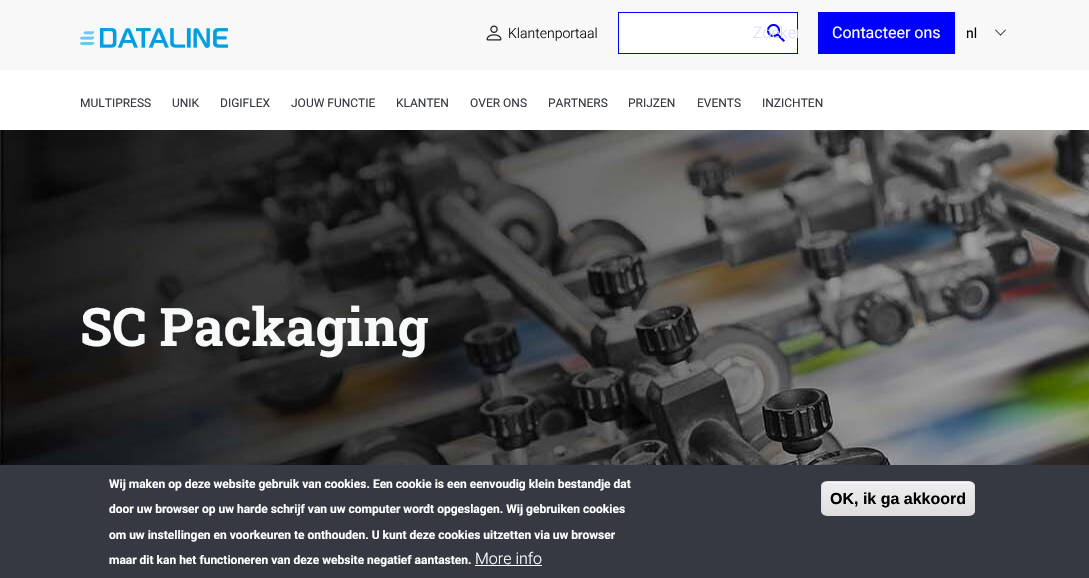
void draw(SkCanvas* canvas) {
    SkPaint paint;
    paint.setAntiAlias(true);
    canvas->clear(0xFFFFFFFF);
    paint.setColor(0xFFF8F8F8);
    canvas->drawRect(SkRect::MakeXYWH(0, 0, 1089, 70), paint);
    canvas->drawImageRect(SkImages::DeferredFromEncodedData(SkData::MakeFromFileName("img1.png")), SkRect::MakeXYWH(80, 28, 148, 20), SkSamplingOptions());
    canvas->drawImageRect(SkImages::DeferredFromEncodedData(SkData::MakeFromFileName("img2.png")), SkRect::MakeXYWH(486, 25, 16, 16), SkSamplingOptions());
    SkFont font1(fontMgr->matchFamilyStyle("Roboto", SkFontStyle(300, SkFontStyle::kNormal_Width, SkFontStyle::kUpright_Slant)), 14);
    font1.setSubpixel(true);
    paint.setColor(0xFF000000);
    canvas->drawString("Klantenportaal", 508, 38, font1, paint);
    paint.setColor(0xFFFFFFFF);
    canvas->drawRect(SkRect::MakeXYWH(618.5f, 12.5f, 179, 41), paint);
    paint.setStyle(SkPaint::kStroke_Style);
    paint.setStrokeWidth(1);
    paint.setColor(0xFF0000FF);
    canvas->drawRect(SkRect::MakeXYWH(618.5f, 12.5f, 179, 41), paint);
    canvas->drawImageRect(SkImages::DeferredFromEncodedData(SkData::MakeFromFileName("img3.png")), SkRect::MakeXYWH(767, 24, 18, 18), SkSamplingOptions());
    canvas->save();
    canvas->clipRect(SkRect::MakeXYWH(753, 12, 45, 42));
    SkFont font2(fontMgr->matchFamilyStyle("Roboto", SkFontStyle(300, SkFontStyle::kNormal_Width, SkFontStyle::kUpright_Slant)), 16);
    font2.setSubpixel(true);
    paint.setStyle(SkPaint::kFill_Style);
    paint.setColor(0xFFDBDBFF);
    canvas->drawString("Zoeken", 753, 38, font2, paint);
    canvas->restore();
    paint.setColor(0xFF0000FF);
    canvas->drawRect(SkRect::MakeXYWH(818, 12, 137, 42), paint);
    SkFont font3(fontMgr->matchFamilyStyle("Roboto", SkFontStyle::Normal()), 16);
    font3.setSubpixel(true);
    paint.setColor(0xFFFFFFFF);
    canvas->drawString("Contacteer ons", 832, 38, font3, paint);
    SkFont font4(fontMgr->matchFamilyStyle("Roboto", SkFontStyle::Normal()), 14);
    font4.setSubpixel(true);
    paint.setColor(0xFF000000);
    canvas->drawString("nl", 966, 38, font4, paint);
    canvas->drawPath(SkPathBuilder().moveTo(1000, 35).lineTo(1005.5f, 29.5f).lineTo(1006, 30).lineTo(1000.5f, 35.5f).close().detach(), paint);
    canvas->drawPath(SkPathBuilder().moveTo(995, 30).lineTo(995.5f, 29.5f).lineTo(1001, 35).lineTo(1000.5f, 35.5f).close().detach(), paint);
    SkFont font5(fontMgr->matchFamilyStyle("Roboto", SkFontStyle::Normal()), 12);
    font5.setSubpixel(true);
    paint.setColor(0xFF363942);
    canvas->drawString("MULTIPRESS", 80, 107, font5, paint);
    canvas->drawString("UNIK", 172, 107, font5, paint);
    canvas->drawString("DIGIFLEX", 220, 107, font5, paint);
    canvas->drawString("JOUW FUNCTIE", 291, 107, font5, paint);
    canvas->drawString("KLANTEN", 396, 107, font5, paint);
    canvas->drawString("OVER ONS", 470, 107, font5, paint);
    canvas->drawString("PARTNERS", 548, 107, font5, paint);
    canvas->drawString("PRIJZEN", 628, 107, font5, paint);
    canvas->drawString("EVENTS", 697, 107, font5, paint);
    canvas->drawString("INZICHTEN", 762, 107, font5, paint);
    canvas->drawImageRect(SkImages::DeferredFromEncodedData(SkData::MakeFromFileName("img4.png")), SkRect::MakeXYWH(0, 130, 1089, 335), SkSamplingOptions());
    SkFont font6(fontMgr->matchFamilyStyle("Roboto Slab", SkFontStyle::Bold()), 53);
    font6.setSubpixel(true);
    paint.setColor(0xFFF8F9FA);
    canvas->drawString("SC Packaging", 80, 346, font6, paint);
    paint.setColor(0xFF373942);
    canvas->drawRect(SkRect::MakeXYWH(0, 465, 1089, 113), paint);
    SkFont font7(fontMgr->matchFamilyStyle("Roboto", SkFontStyle::Bold()), 12);
    font7.setSubpixel(true);
    paint.setColor(0xFFFFFFFF);
    canvas->drawString("Wij maken op deze website gebruik van cookies. Een cookie is een eenvoudig klein bestandje dat", 109, 488, font7, paint);
    canvas->drawString("door uw browser op uw harde schrijf van uw computer wordt opgeslagen. Wij gebruiken cookies", 109, 513, font7, paint);
    canvas->drawString("om uw instellingen en voorkeuren te onthouden. U kunt deze cookies uitzetten via uw browser", 109, 539, font7, paint);
    canvas->drawString("maar dit kan het functioneren van deze website negatief aantasten.", 109, 564, font7, paint);
    canvas->drawString("More info", 475, 564, font2, paint);
    canvas->drawRect(SkRect::MakeXYWH(475, 565, 67, 1), paint);
    canvas->save();
    canvas->clipPath(SkPathBuilder().moveTo(827, 481).lineTo(969, 481).cubicTo(972.5f, 481, 975, 483.5f, 975, 487).lineTo(975, 510).cubicTo(975, 513.5f, 972.5f, 516, 969, 516).lineTo(827, 516).cubicTo(823.5f, 516, 821, 513.5f, 821, 510).lineTo(821, 487).cubicTo(821, 483.5f, 823.5f, 481, 827, 481).close().detach(), true);
    {
        const SkColor colors[] = {0xFFEDEDED, 0xFFDFDFDF};
        const float stops[] = {0.05f, 1};
        const SkPoint ends[] = {{898, 482}, {898, 515}};
        paint.setShader(SkGradientShader::MakeLinear(ends, colors, stops, 2, SkTileMode::kClamp));
        paint.setAlpha(255);
    }
    canvas->drawRect(SkRect::MakeXYWH(821, 482, 154, 33), paint);
    canvas->restore();
    paint.setShader(nullptr);
    paint.setColor(0xFFFFFFFF);
    canvas->drawPath(SkPathBuilder().moveTo(827, 483).lineTo(969, 483).cubicTo(972, 483, 974, 485, 974, 488).lineTo(974, 487).cubicTo(974, 484, 972, 482, 969, 482).lineTo(827, 482).cubicTo(824, 482, 822, 484, 822, 487).lineTo(822, 488).cubicTo(822, 485, 824, 483, 827, 483).close().detach(), paint);
    paint.setStyle(SkPaint::kStroke_Style);
    paint.setColor(0xFFDCDCDC);
    canvas->drawRoundRect(SkRect::MakeXYWH(821.5f, 481.5f, 153, 34), 5.5f, 5.5f, paint);
    SkFont font8(fontMgr->matchFamilyStyle("Liberation Sans", SkFontStyle::Bold()), 16);
    font8.setSubpixel(true);
    paint.setStyle(SkPaint::kFill_Style);
    paint.setColor(0xFF000000);
    canvas->drawString("OK, ik ga akkoord", 830, 504, font8, paint);
}
